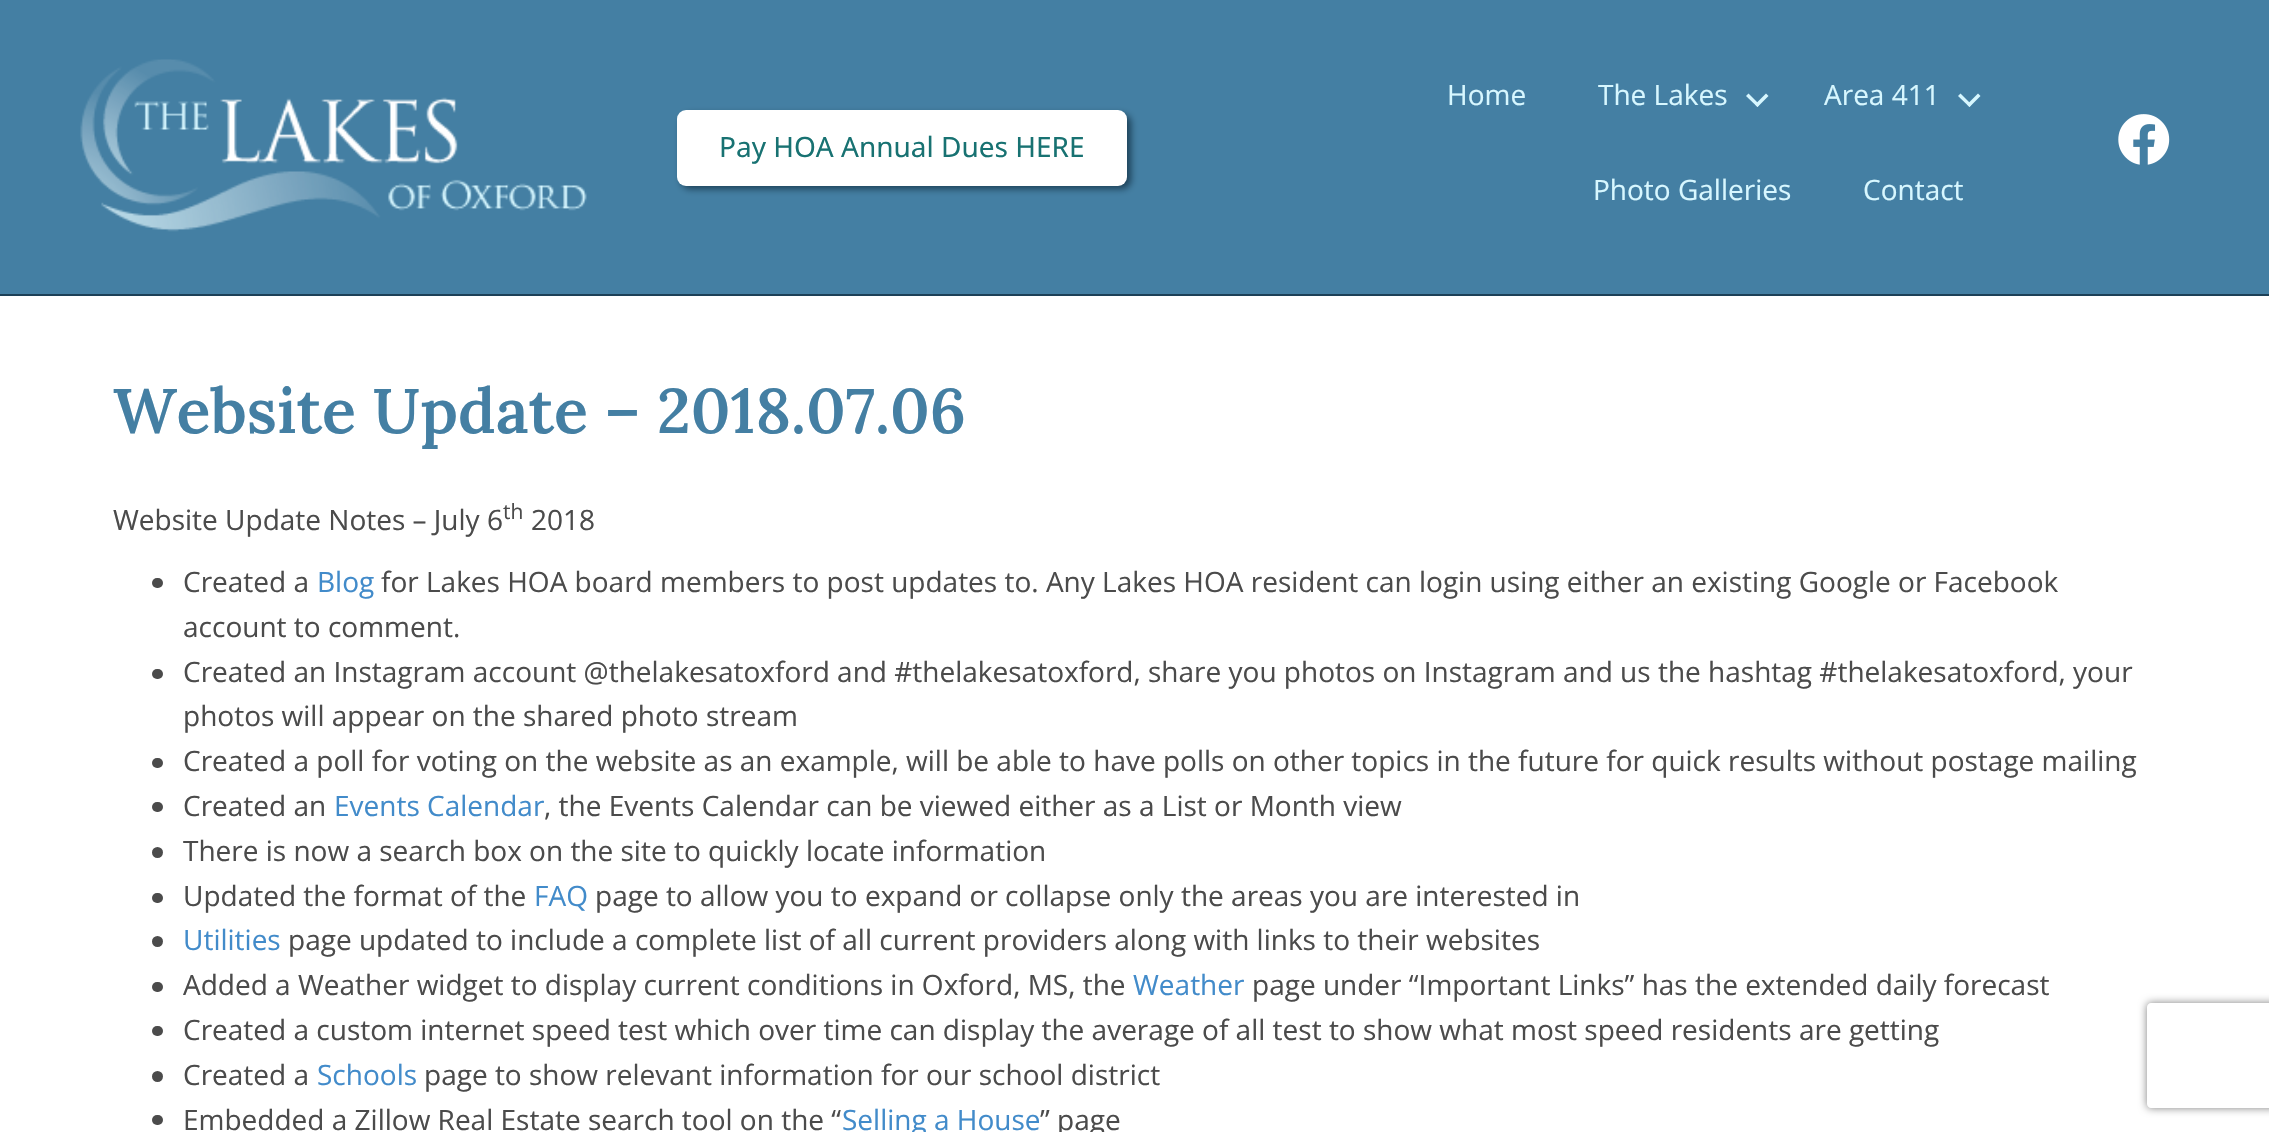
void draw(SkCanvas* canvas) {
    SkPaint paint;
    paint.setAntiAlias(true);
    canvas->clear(0xFFFFFFFF);
    paint.setColor(0xFF447FA3);
    canvas->drawRect(SkRect::MakeXYWH(0, 0, 2269, 294), paint);
    paint.setColor(0xFF1C4057);
    canvas->drawRect(SkRect::MakeXYWH(0, 294, 2269, 2), paint);
    canvas->drawImageRect(SkImages::DeferredFromEncodedData(SkData::MakeFromFileName("img1.png")), SkRect::MakeXYWH(80, 59, 507, 173), SkSamplingOptions());
    paint.setMaskFilter(SkMaskFilter::MakeBlur(kNormal_SkBlurStyle, 3.5f));
    canvas->drawRoundRect(SkRect::MakeXYWH(681, 114, 450, 75), 9, 9, paint);
    paint.setMaskFilter(nullptr);
    paint.setColor(0xFFFFFFFF);
    canvas->drawRoundRect(SkRect::MakeXYWH(677, 110, 450, 76), 9, 9, paint);
    SkFont font1(fontMgr->matchFamilyStyle("Noto Sans", SkFontStyle::Normal()), 28);
    font1.setSubpixel(true);
    paint.setColor(0xFF187272);
    canvas->drawString("Pay HOA Annual Dues HERE", 719, 157, font1, paint);
    SkFont font2(fontMgr->matchFamilyStyle("Open Sans", SkFontStyle::Normal()), 28);
    font2.setSubpixel(true);
    paint.setColor(0xFFD7F7FF);
    canvas->drawString("Home", 1447, 105, font2, paint);
    canvas->drawString("The Lakes", 1598, 105, font2, paint);
    canvas->drawPath(SkPathBuilder().moveTo(1766, 93.5f).lineTo(1768.5f, 96).lineTo(1757.5f, 107).lineTo(1755, 104.5f).close().detach(), paint);
    canvas->drawPath(SkPathBuilder().moveTo(1748.5f, 93.5f).lineTo(1759.5f, 104.5f).lineTo(1757.5f, 107).lineTo(1746, 96).close().detach(), paint);
    canvas->drawString("Area 411", 1824, 105, font2, paint);
    canvas->drawPath(SkPathBuilder().moveTo(1978, 93.5f).lineTo(1980.5f, 96).lineTo(1969.5f, 107).lineTo(1967, 104.5f).close().detach(), paint);
    canvas->drawPath(SkPathBuilder().moveTo(1960.5f, 93.5f).lineTo(1971.5f, 104.5f).lineTo(1969.5f, 107).lineTo(1958, 96).close().detach(), paint);
    canvas->drawString("Photo Galleries", 1593, 200, font2, paint);
    canvas->drawString("Contact", 1863, 200, font2, paint);
    canvas->drawImageRect(SkImages::DeferredFromEncodedData(SkData::MakeFromFileName("img2.png")), SkRect::MakeXYWH(2118, 114, 52, 51), SkSamplingOptions());
    SkFont font3(fontMgr->matchFamilyStyle("Lora", SkFontStyle(600, SkFontStyle::kNormal_Width, SkFontStyle::kUpright_Slant)), 63);
    font3.setSubpixel(true);
    paint.setColor(0xFF447FA3);
    canvas->drawString("Website Update – 2018.07.06", 113, 433, font3, paint);
    paint.setColor(0xFF4B4B4B);
    canvas->drawString("Website Update Notes – July 6", 113, 530, font2, paint);
    SkFont font4(fontMgr->matchFamilyStyle("Open Sans", SkFontStyle::Normal()), 21);
    font4.setSubpixel(true);
    canvas->drawString("th", 503, 519, font4, paint);
    canvas->drawString("2018", 531, 530, font2, paint);
    canvas->drawRoundRect(SkRect::MakeXYWH(152, 578, 11, 10), 5, 5, paint);
    canvas->drawString("Created a", 183, 592, font2, paint);
    paint.setColor(0xFF428BCA);
    canvas->drawString("Blog", 317, 592, font2, paint);
    paint.setColor(0xFF4B4B4B);
    canvas->drawString("for Lakes HOA board members to post updates to. Any Lakes HOA resident can login using either an existing Google or Facebook", 381, 592, font2, paint);
    canvas->drawString("account to comment.", 183, 637, font2, paint);
    canvas->drawRoundRect(SkRect::MakeXYWH(152, 669, 11, 10), 5, 5, paint);
    canvas->drawString("Created an Instagram account @thelakesatoxford and #thelakesatoxford, share you photos on Instagram and us the hashtag #thelakesatoxford, your", 183, 682, font2, paint);
    canvas->drawString("photos will appear on the shared photo stream", 183, 726, font2, paint);
    canvas->drawRoundRect(SkRect::MakeXYWH(152, 758, 11, 10), 5, 5, paint);
    canvas->drawString("Created a poll for voting on the website as an example, will be able to have polls on other topics in the future for quick results without postage mailing", 183, 771, font2, paint);
    canvas->drawRoundRect(SkRect::MakeXYWH(152, 802, 11, 10), 5, 5, paint);
    canvas->drawString("Created an", 183, 816, font2, paint);
    paint.setColor(0xFF428BCA);
    canvas->drawString("Events Calendar", 334, 816, font2, paint);
    paint.setColor(0xFF4B4B4B);
    canvas->drawString(", the Events Calendar can be viewed either as a List or Month view", 544, 816, font2, paint);
    canvas->drawCircle(157.5f, 852.5f, 5.5f, paint);
    canvas->drawString("There is now a search box on the site to quickly locate information", 183, 861, font2, paint);
    canvas->drawRoundRect(SkRect::MakeXYWH(152, 893, 11, 10), 5, 5, paint);
    canvas->drawString("Updated the format of the", 183, 906, font2, paint);
    paint.setColor(0xFF428BCA);
    canvas->drawString("FAQ", 534, 906, font2, paint);
    paint.setColor(0xFF4B4B4B);
    canvas->drawString("page to allow you to expand or collapse only the areas you are interested in", 595, 906, font2, paint);
    canvas->drawCircle(157.5f, 941.5f, 5.5f, paint);
    paint.setColor(0xFF428BCA);
    canvas->drawString("Utilities", 183, 950, font2, paint);
    paint.setColor(0xFF4B4B4B);
    canvas->drawString("page updated to include a complete list of all current providers along with links to their websites", 288, 950, font2, paint);
    canvas->drawRoundRect(SkRect::MakeXYWH(152, 982, 11, 10), 5, 5, paint);
    canvas->drawString("Added a Weather widget to display current conditions in Oxford, MS, the", 183, 995, font2, paint);
    paint.setColor(0xFF428BCA);
    canvas->drawString("Weather", 1133, 995, font2, paint);
    paint.setColor(0xFF4B4B4B);
    canvas->drawString("page under “Important Links” has the extended daily forecast", 1252, 995, font2, paint);
    canvas->drawRoundRect(SkRect::MakeXYWH(152, 1026, 11, 10), 5, 5, paint);
    canvas->drawString("Created a custom internet speed test which over time can display the average of all test to show what most speed residents are getting", 183, 1040, font2, paint);
    canvas->drawCircle(157.5f, 1076.5f, 5.5f, paint);
    canvas->drawString("Created a", 183, 1085, font2, paint);
    paint.setColor(0xFF428BCA);
    canvas->drawString("Schools", 317, 1085, font2, paint);
    paint.setColor(0xFF4B4B4B);
    canvas->drawString("page to show relevant information for our school district", 424, 1085, font2, paint);
    canvas->drawRoundRect(SkRect::MakeXYWH(152, 1115, 11, 10), 5, 5, paint);
    canvas->drawString("Embedded a Zillow Real Estate search tool on the “", 183, 1130, font2, paint);
    paint.setColor(0xFF428BCA);
    canvas->drawString("Selling a House", 842, 1130, font2, paint);
    paint.setColor(0xFF4B4B4B);
    canvas->drawString("” page", 1040, 1130, font2, paint);
    canvas->save();
    canvas->clipPath(SkPathBuilder(SkPathFillType::kEvenOdd).moveTo(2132, 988).lineTo(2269, 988).lineTo(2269, 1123).lineTo(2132, 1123).close().moveTo(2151, 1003).lineTo(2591, 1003).cubicTo(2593, 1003, 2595, 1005, 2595, 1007).lineTo(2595, 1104).cubicTo(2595, 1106, 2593, 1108, 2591, 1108).lineTo(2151, 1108).cubicTo(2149, 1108, 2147, 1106, 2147, 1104).lineTo(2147, 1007).cubicTo(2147, 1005, 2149, 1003, 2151, 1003).close().detach(), true);
    paint.setColor(0xFF808080);
    paint.setMaskFilter(SkMaskFilter::MakeBlur(kNormal_SkBlurStyle, 4.5f));
    canvas->drawRoundRect(SkRect::MakeXYWH(2147, 1003, 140, 105), 4, 4, paint);
    paint.setMaskFilter(nullptr);
    canvas->restore();
}
